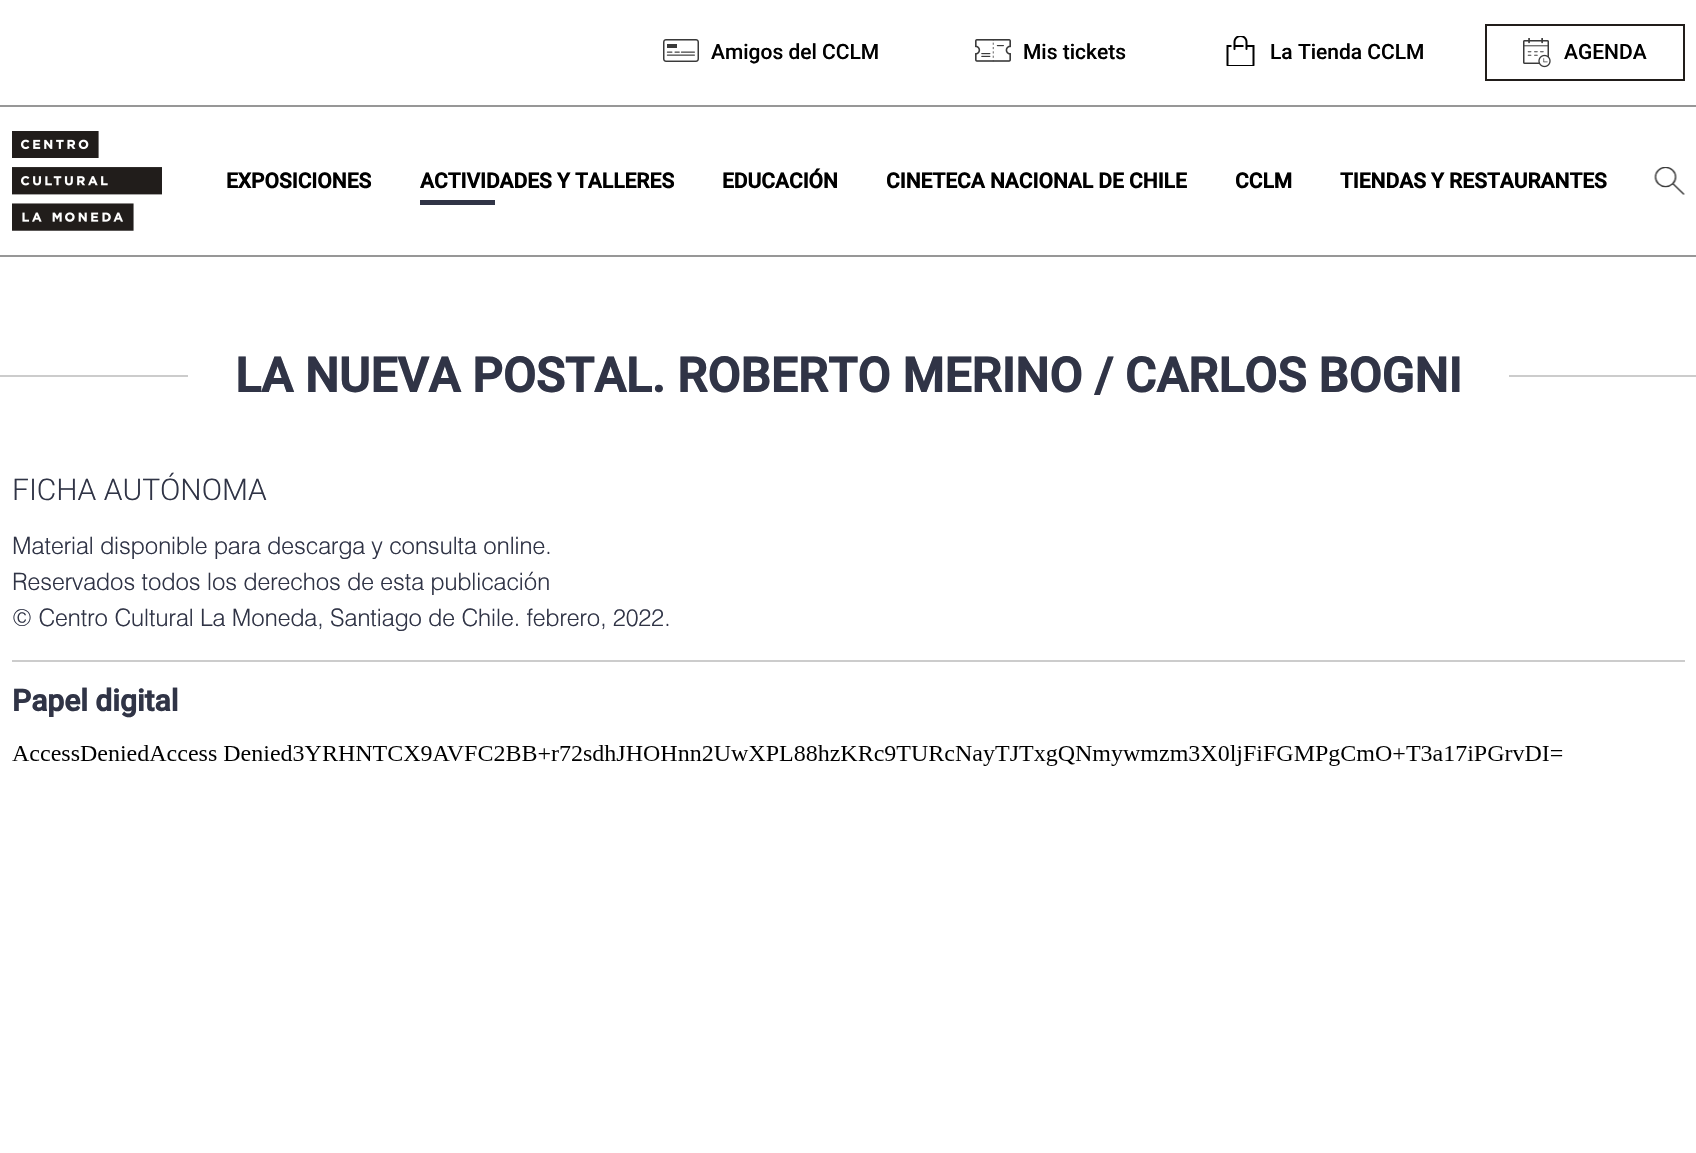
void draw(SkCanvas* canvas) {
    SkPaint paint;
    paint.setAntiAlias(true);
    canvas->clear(0xFFFFFFFF);
    paint.setColor(0xFF979797);
    canvas->drawRect(SkRect::MakeXYWH(0, 105, 1696, 2), paint);
    canvas->drawImageRect(SkImages::DeferredFromEncodedData(SkData::MakeFromFileName("img1.png")), SkRect::MakeXYWH(663, 39, 36, 23), SkSamplingOptions());
    SkFont font1(fontMgr->matchFamilyStyle("Roboto", SkFontStyle(500, SkFontStyle::kNormal_Width, SkFontStyle::kUpright_Slant)), 21);
    font1.setSubpixel(true);
    paint.setColor(0xFF000000);
    canvas->drawString("Amigos del CCLM", 711, 59, font1, paint);
    canvas->drawImageRect(SkImages::DeferredFromEncodedData(SkData::MakeFromFileName("img2.png")), SkRect::MakeXYWH(975, 39, 36, 23), SkSamplingOptions());
    canvas->drawString("Mis tickets", 1023, 59, font1, paint);
    canvas->drawImageRect(SkImages::DeferredFromEncodedData(SkData::MakeFromFileName("img3.png")), SkRect::MakeXYWH(1226, 36, 29, 30), SkSamplingOptions());
    canvas->drawString("La Tienda CCLM", 1270, 59, font1, paint);
    paint.setStyle(SkPaint::kStroke_Style);
    paint.setStrokeWidth(2);
    paint.setColor(0xFF211D1A);
    canvas->drawRect(SkRect::MakeXYWH(1486, 25, 198, 55), paint);
    canvas->drawImageRect(SkImages::DeferredFromEncodedData(SkData::MakeFromFileName("img4.png")), SkRect::MakeXYWH(1523, 38, 28, 30), SkSamplingOptions());
    paint.setStyle(SkPaint::kFill_Style);
    paint.setColor(0xFF000000);
    canvas->drawString("AGENDA", 1564, 59, font1, paint);
    paint.setColor(0xFF979797);
    canvas->drawRect(SkRect::MakeXYWH(0, 255, 1696, 2), paint);
    canvas->drawImageRect(SkImages::DeferredFromEncodedData(SkData::MakeFromFileName("img5.png")), SkRect::MakeXYWH(12, 131, 150, 100), SkSamplingOptions());
    SkFont font2(fontMgr->matchFamilyStyle("Roboto", SkFontStyle::Bold()), 21);
    font2.setSubpixel(true);
    paint.setColor(0xFF000000);
    canvas->drawString("EXPOSICIONES", 226, 188, font2, paint);
    canvas->drawString("ACTIVIDADES Y TALLERES", 420, 188, font2, paint);
    paint.setColor(0xFF303446);
    canvas->drawRect(SkRect::MakeXYWH(420, 200, 75, 5), paint);
    paint.setColor(0xFF000000);
    canvas->drawString("EDUCACIÓN", 722, 188, font2, paint);
    canvas->drawString("CINETECA NACIONAL DE CHILE", 886, 188, font2, paint);
    canvas->drawString("CCLM", 1235, 188, font2, paint);
    canvas->drawString("TIENDAS Y RESTAURANTES", 1340, 188, font2, paint);
    canvas->drawImageRect(SkImages::DeferredFromEncodedData(SkData::MakeFromFileName("img6.png")), SkRect::MakeXYWH(1654, 167, 31, 28), SkSamplingOptions());
    paint.setColor(0xFFCCCCCC);
    canvas->drawRect(SkRect::MakeXYWH(0, 375, 1696, 2), paint);
    paint.setColor(0xFFFFFFFF);
    canvas->drawRect(SkRect::MakeXYWH(188, 375, 1321, 2), paint);
    SkFont font3(fontMgr->matchFamilyStyle("Roboto", SkFontStyle::Bold()), 48);
    font3.setSubpixel(true);
    paint.setColor(0xFF303446);
    canvas->drawString("LA NUEVA POSTAL. ROBERTO MERINO / CARLOS BOGNI", 235, 392, font3, paint);
    SkFont font4(fontMgr->matchFamilyStyle("Roboto", SkFontStyle(300, SkFontStyle::kNormal_Width, SkFontStyle::kUpright_Slant)), 30);
    font4.setSubpixel(true);
    canvas->drawString("FICHA AUTÓNOMA", 12, 500, font4, paint);
    SkFont font5(fontMgr->matchFamilyStyle("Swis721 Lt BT", SkFontStyle(300, SkFontStyle::kNormal_Width, SkFontStyle::kUpright_Slant)), 24);
    font5.setSubpixel(true);
    canvas->drawString("Material disponible para descarga y consulta online.", 12, 554, font5, paint);
    canvas->drawString("Reservados todos los derechos de esta publicación", 12, 590, font5, paint);
    canvas->drawString("© Centro Cultural La Moneda, Santiago de Chile. febrero, 2022.", 12, 626, font5, paint);
    paint.setColor(0xFFCCCCCC);
    canvas->drawRect(SkRect::MakeXYWH(12, 660, 1673, 2), paint);
    SkFont font6(fontMgr->matchFamilyStyle("Roboto", SkFontStyle::Bold()), 30);
    font6.setSubpixel(true);
    paint.setColor(0xFF303446);
    canvas->drawString("Papel digital", 12, 711, font6, paint);
    canvas->drawImageRect(SkImages::DeferredFromEncodedData(SkData::MakeFromFileName("img7.png")), SkRect::MakeXYWH(12, 745, 1551, 21), SkSamplingOptions());
}
